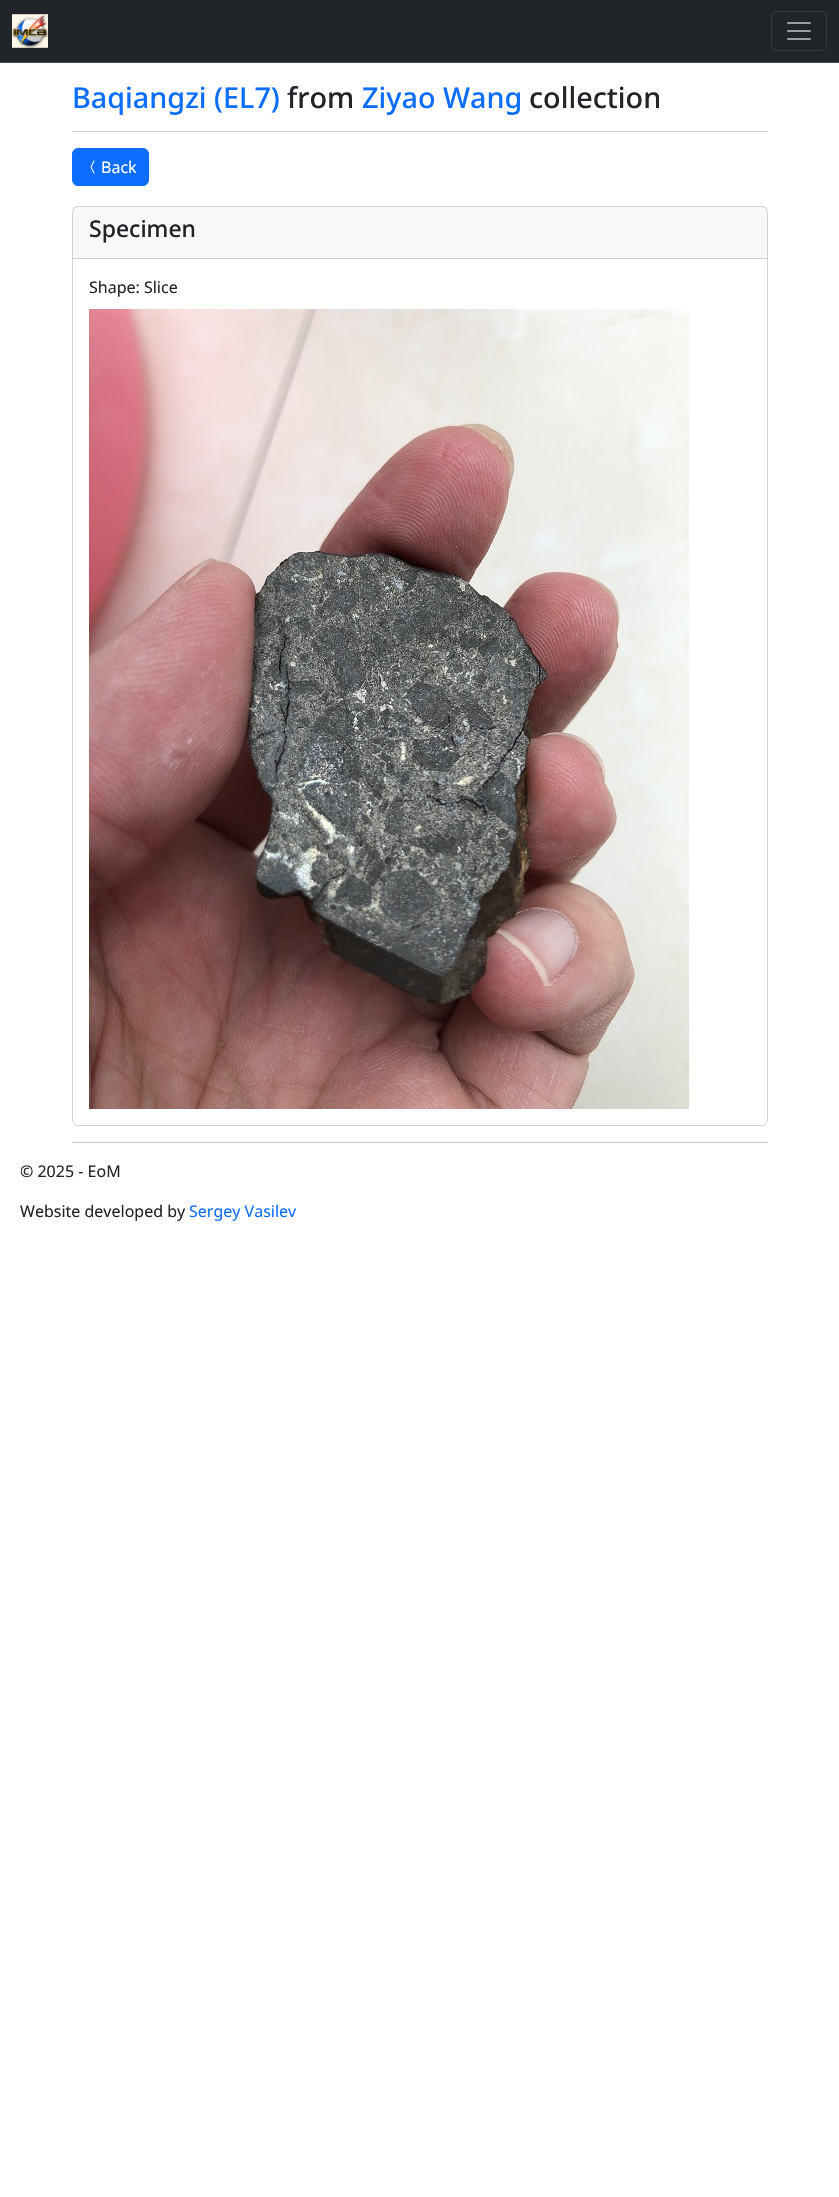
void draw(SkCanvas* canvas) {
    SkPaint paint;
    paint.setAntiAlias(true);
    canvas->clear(0xFFFFFFFF);
    paint.setColor(0xFF212529);
    canvas->drawRect(SkRect::MakeXYWH(0, 0, 839, 62), paint);
    paint.setColor(0xFF495057);
    canvas->drawRect(SkRect::MakeXYWH(0, 62, 839, 1), paint);
    canvas->drawImageRect(SkImages::DeferredFromEncodedData(SkData::MakeFromFileName("img1.png")), SkRect::MakeXYWH(12, 14, 36, 34), SkSamplingOptions());
    paint.setStyle(SkPaint::kStroke_Style);
    paint.setStrokeWidth(1);
    paint.setColor(0xFF373B3E);
    canvas->drawRoundRect(SkRect::MakeXYWH(771.5f, 11.5f, 55, 39), 5.5f, 5.5f, paint);
    canvas->drawImageRect(SkImages::DeferredFromEncodedData(SkData::MakeFromFileName("img2.png")), SkRect::MakeXYWH(787, 22, 24, 18), SkSamplingOptions());
    SkFont font1(fontMgr->matchFamilyStyle("Noto Sans", SkFontStyle(500, SkFontStyle::kNormal_Width, SkFontStyle::kUpright_Slant)), 28.75f);
    font1.setSubpixel(true);
    paint.setStyle(SkPaint::kFill_Style);
    paint.setColor(0xFF0D6EFD);
    canvas->drawString("Baqiangzi (EL7)", 72, 108, font1, paint);
    paint.setColor(0xFF212529);
    canvas->drawString("from", 287, 108, font1, paint);
    paint.setColor(0xFF0D6EFD);
    canvas->drawString("Ziyao Wang", 362, 108, font1, paint);
    paint.setColor(0xFF212529);
    canvas->drawString("collection", 529, 108, font1, paint);
    paint.setColor(0xFFC8C9CA);
    canvas->drawRect(SkRect::MakeXYWH(72, 131, 696, 1), paint);
    paint.setColor(0xFF0D6EFD);
    canvas->drawRoundRect(SkRect::MakeXYWH(72.5f, 148.5f, 76, 37), 5.5f, 5.5f, paint);
    paint.setStyle(SkPaint::kStroke_Style);
    canvas->drawRoundRect(SkRect::MakeXYWH(72.5f, 148.5f, 76, 37), 5.5f, 5.5f, paint);
    canvas->drawImageRect(SkImages::DeferredFromEncodedData(SkData::MakeFromFileName("img3.png")), SkRect::MakeXYWH(90, 160, 5, 14), SkSamplingOptions());
    SkFont font2(fontMgr->matchFamilyStyle("Noto Sans", SkFontStyle::Normal()), 16);
    font2.setSubpixel(true);
    paint.setStyle(SkPaint::kFill_Style);
    paint.setColor(0xFFFFFFFF);
    canvas->drawString("Back", 101, 173, font2, paint);
    paint.setStyle(SkPaint::kStroke_Style);
    paint.setColor(0xFFD2D2D2);
    canvas->drawRoundRect(SkRect::MakeXYWH(72.5f, 206.5f, 695, 919), 5.5f, 5.5f, paint);
    paint.setStyle(SkPaint::kFill_Style);
    paint.setColor(0x08212529);
    canvas->drawRect(SkRect::MakeXYWH(73, 207, 694, 51), paint);
    paint.setColor(0xFFCDCDCD);
    canvas->drawRect(SkRect::MakeXYWH(73, 258, 694, 1), paint);
    SkFont font3(fontMgr->matchFamilyStyle("Noto Sans", SkFontStyle(500, SkFontStyle::kNormal_Width, SkFontStyle::kUpright_Slant)), 23);
    font3.setSubpixel(true);
    paint.setColor(0xFF212529);
    canvas->drawString("Specimen", 89, 237, font3, paint);
    canvas->drawString("Shape: Slice", 89, 293, font2, paint);
    canvas->drawImageRect(SkImages::DeferredFromEncodedData(SkData::MakeFromFileName("img4.png")), SkRect::MakeXYWH(89, 309, 600, 800), SkSamplingOptions());
    paint.setColor(0xFFC8C9CA);
    canvas->drawRect(SkRect::MakeXYWH(72, 1142, 696, 1), paint);
    paint.setColor(0xFF212529);
    canvas->drawString("© 2025 - EoM", 20, 1177, font2, paint);
    canvas->drawString("Website developed by", 20, 1217, font2, paint);
    paint.setColor(0xFF0D6EFD);
    canvas->drawString("Sergey Vasilev", 189, 1217, font2, paint);
}
